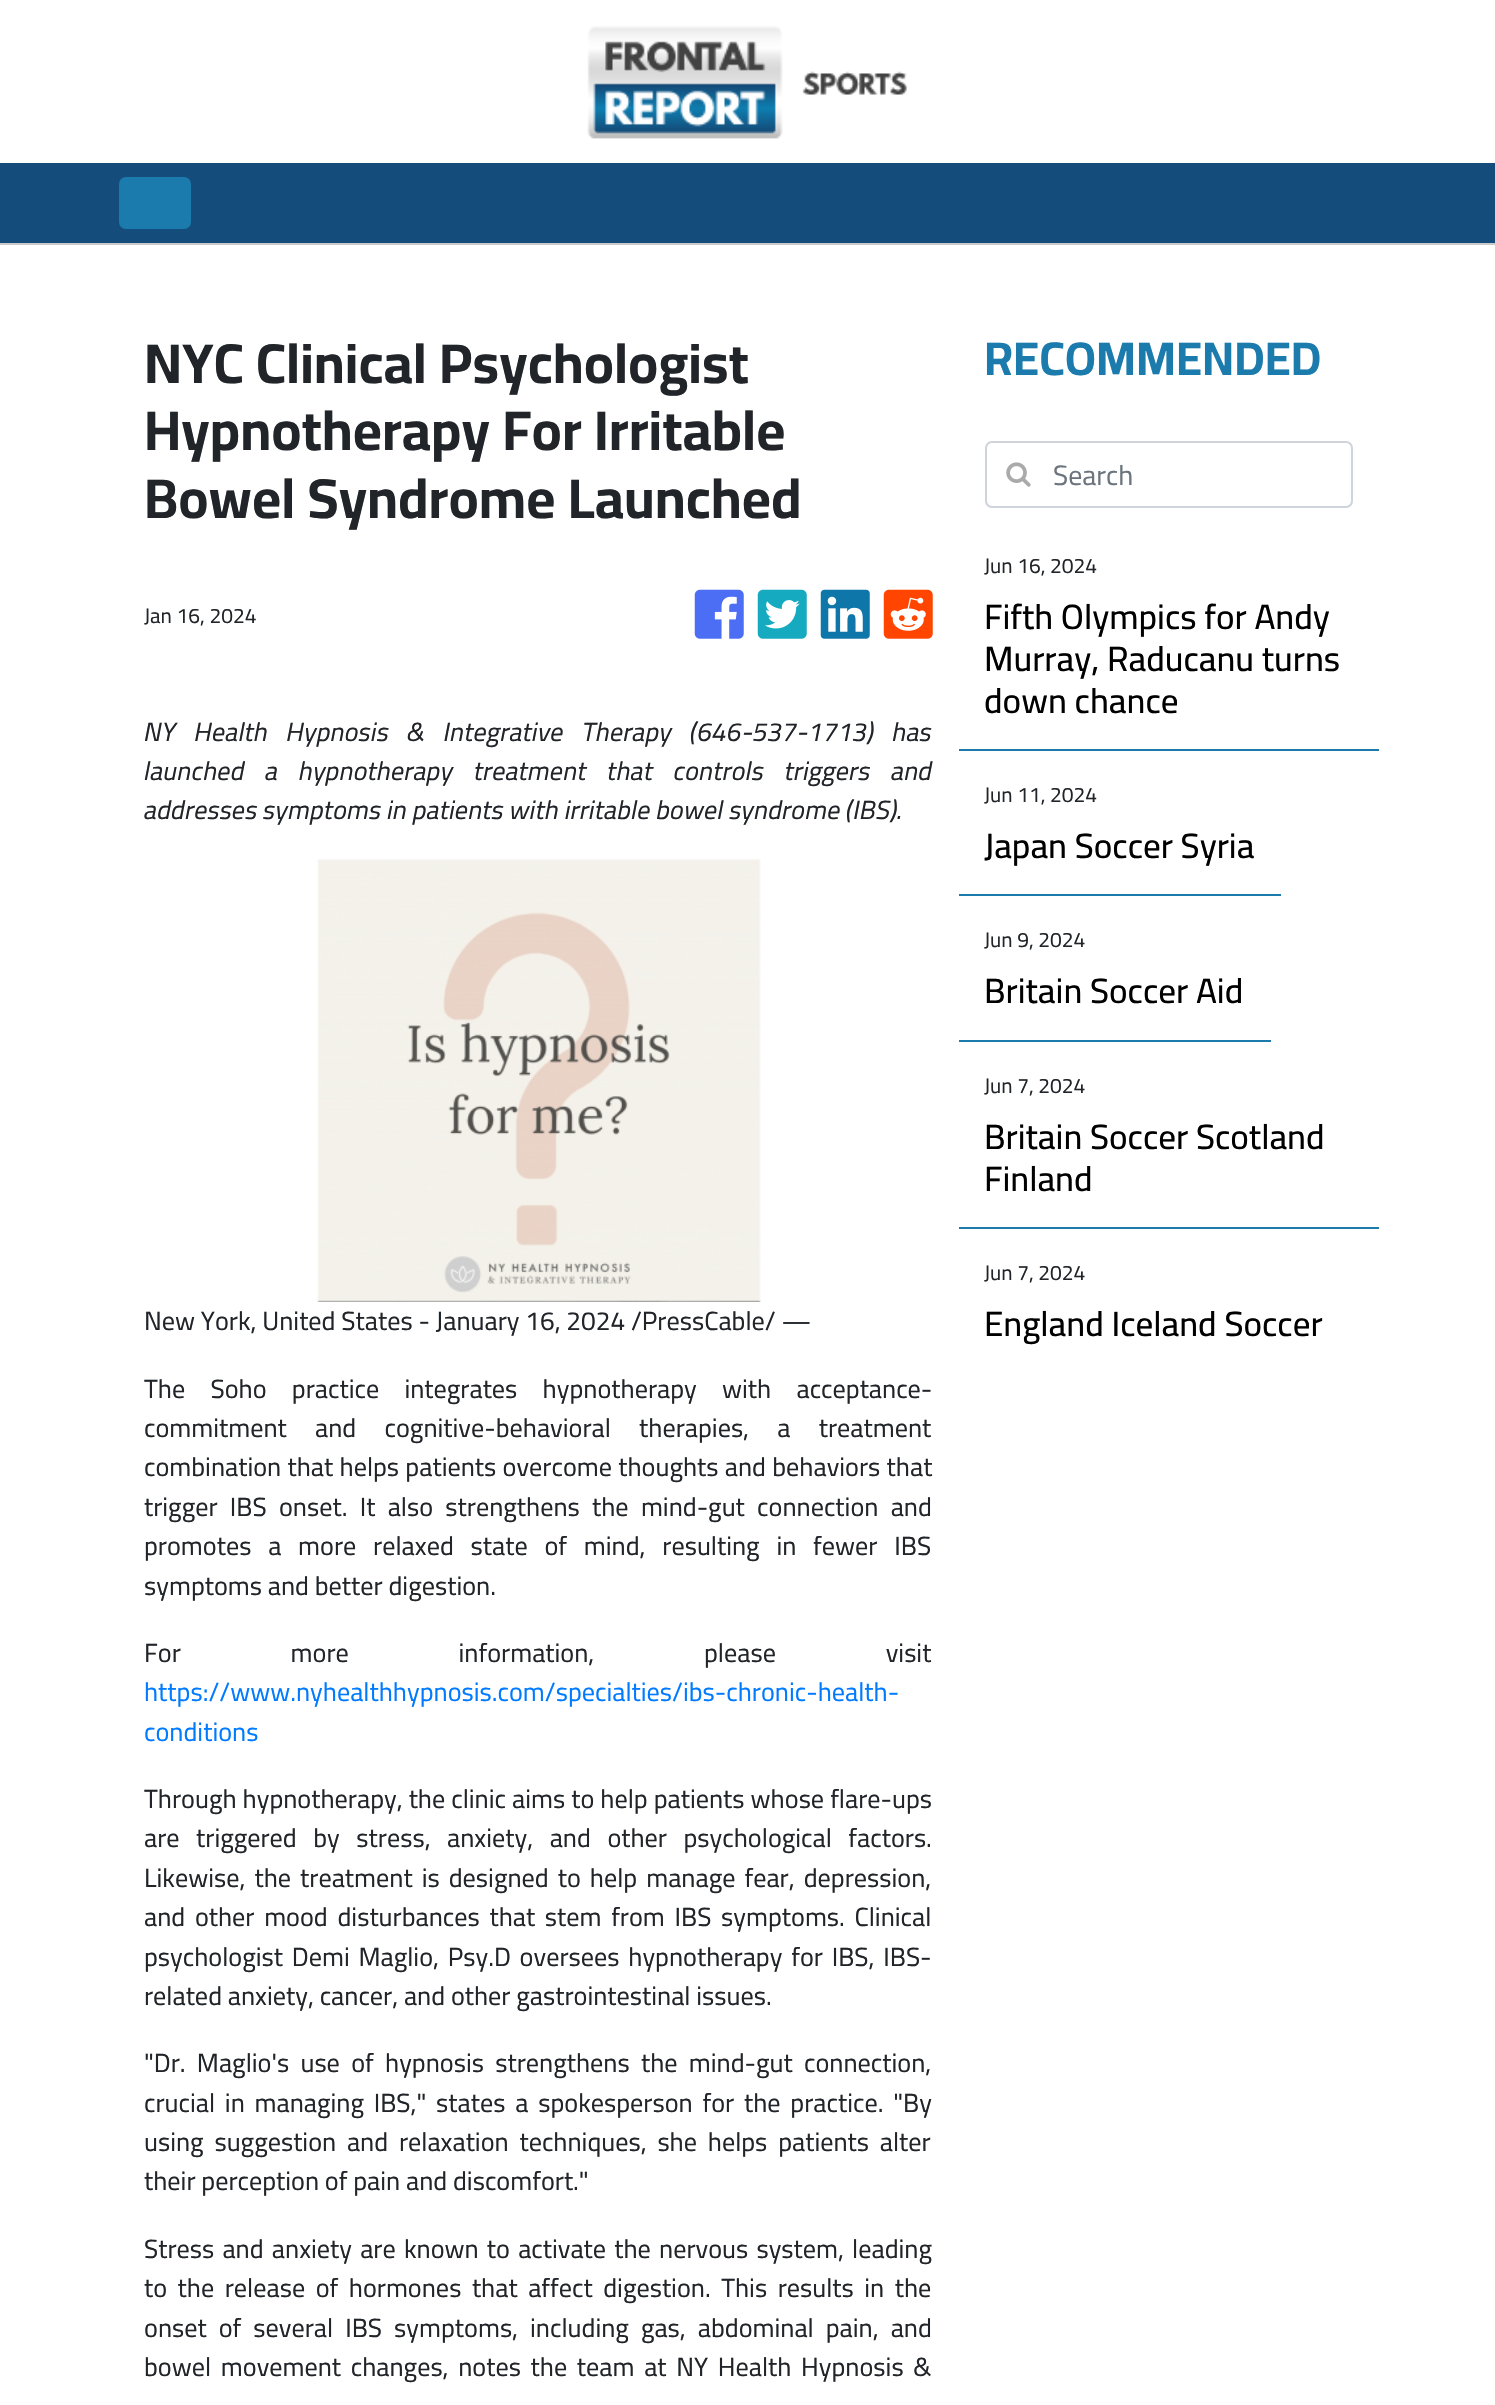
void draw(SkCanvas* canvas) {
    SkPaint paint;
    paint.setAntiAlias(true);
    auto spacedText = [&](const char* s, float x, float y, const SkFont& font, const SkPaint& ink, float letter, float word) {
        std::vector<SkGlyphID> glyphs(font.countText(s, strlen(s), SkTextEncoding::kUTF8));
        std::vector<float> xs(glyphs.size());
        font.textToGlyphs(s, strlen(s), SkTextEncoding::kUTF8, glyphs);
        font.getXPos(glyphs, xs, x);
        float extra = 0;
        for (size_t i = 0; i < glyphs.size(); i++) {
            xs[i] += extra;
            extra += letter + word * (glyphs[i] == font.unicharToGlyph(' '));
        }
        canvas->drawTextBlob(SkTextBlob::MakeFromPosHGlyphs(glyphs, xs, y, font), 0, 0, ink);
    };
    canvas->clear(0xFFFFFFFF);
    canvas->drawImageRect(SkImages::DeferredFromEncodedData(SkData::MakeFromFileName("img1.png")), SkRect::MakeXYWH(587, 26, 320, 113), SkSamplingOptions());
    paint.setColor(0xFF144D7B);
    canvas->drawRect(SkRect::MakeXYWH(0, 163, 1495, 80), paint);
    paint.setColor(0xFFCACACA);
    canvas->drawRect(SkRect::MakeXYWH(0, 243, 1495, 2), paint);
    paint.setColor(0xFF1C7BAD);
    canvas->drawRoundRect(SkRect::MakeXYWH(119, 177, 72, 52), 7, 7, paint);
    SkFont font1(fontMgr->matchFamilyStyle("Cairo", SkFontStyle::Bold()), 56);
    font1.setSubpixel(true);
    paint.setColor(0xFF212529);
    canvas->drawString("NYC Clinical Psychologist", 144, 383, font1, paint);
    canvas->drawString("Hypnotherapy For Irritable", 144, 450, font1, paint);
    canvas->drawString("Bowel Syndrome Launched", 144, 518, font1, paint);
    SkFont font2(fontMgr->matchFamilyStyle("Cairo", SkFontStyle::Normal()), 21);
    font2.setSubpixel(true);
    canvas->drawString("Jan 16, 2024", 144, 623, font2, paint);
    canvas->drawImageRect(SkImages::DeferredFromEncodedData(SkData::MakeFromFileName("img2.png")), SkRect::MakeXYWH(694, 589, 50, 50), SkSamplingOptions());
    canvas->drawImageRect(SkImages::DeferredFromEncodedData(SkData::MakeFromFileName("img3.png")), SkRect::MakeXYWH(757, 589, 50, 50), SkSamplingOptions());
    canvas->drawImageRect(SkImages::DeferredFromEncodedData(SkData::MakeFromFileName("img4.png")), SkRect::MakeXYWH(820, 589, 50, 50), SkSamplingOptions());
    canvas->drawImageRect(SkImages::DeferredFromEncodedData(SkData::MakeFromFileName("img5.png")), SkRect::MakeXYWH(883, 589, 50, 50), SkSamplingOptions());
    SkFont font3(fontMgr->matchFamilyStyle("Cairo", SkFontStyle::Italic()), 26.25f);
    font3.setSubpixel(true);
    spacedText("NY Health Hypnosis & Integrative Therapy (646-537-1713) has", 144, 741, font3, paint, 0, 12.5f);
    spacedText("launched a hypnotherapy treatment that controls triggers and", 144, 780, font3, paint, 0, 14.75f);
    canvas->drawString("addresses symptoms in patients with irritable bowel syndrome (IBS).", 144, 819, font3, paint);
    canvas->drawImageRect(SkImages::DeferredFromEncodedData(SkData::MakeFromFileName("img6.png")), SkRect::MakeXYWH(317, 859, 444, 443), SkSamplingOptions());
    SkFont font4(fontMgr->matchFamilyStyle("Cairo", SkFontStyle::Normal()), 26.25f);
    font4.setSubpixel(true);
    canvas->drawString("New York, United States - January 16, 2024 /PressCable/ —", 144, 1330, font4, paint);
    spacedText("The Soho practice integrates hypnotherapy with acceptance-", 144, 1398, font4, paint, 0, 19.5f);
    spacedText("commitment and cognitive-behavioral therapies, a treatment", 144, 1437, font4, paint, 0, 22.5f);
    spacedText("combination that helps patients overcome thoughts and behaviors that", 144, 1476, font4, paint, 0, 0.5f);
    spacedText("trigger IBS onset. It also strengthens the mind-gut connection and", 144, 1516, font4, paint, 0, 6.5f);
    spacedText("promotes a more relaxed state of mind, resulting in fewer IBS", 144, 1555, font4, paint, 0, 11);
    canvas->drawString("symptoms and better digestion.", 144, 1595, font4, paint);
    spacedText("For more information, please visit", 144, 1662, font4, paint, 0, 104);
    paint.setColor(0xFF007BFF);
    canvas->drawString("https://www.nyhealthhypnosis.com/specialties/ibs-chronic-health-", 144, 1701, font4, paint);
    canvas->drawString("conditions", 144, 1741, font4, paint);
    paint.setColor(0xFF212529);
    spacedText("Through hypnotherapy, the clinic aims to help patients whose flare-ups", 144, 1808, font4, paint, 0, 0.25f);
    spacedText("are triggered by stress, anxiety, and other psychological factors.", 144, 1847, font4, paint, 0, 10.75f);
    spacedText("Likewise, the treatment is designed to help manage fear, depression,", 144, 1887, font4, paint, 0, 3.25f);
    spacedText("and other mood disturbances that stem from IBS symptoms. Clinical", 144, 1926, font4, paint, 0, 3.9f);
    spacedText("psychologist Demi Maglio, Psy.D oversees hypnotherapy for IBS, IBS-", 144, 1966, font4, paint, 0, 3);
    canvas->drawString("related anxiety, cancer, and other gastrointestinal issues.", 144, 2005, font4, paint);
    spacedText("\"Dr. Maglio's use of hypnosis strengthens the mind-gut connection,", 144, 2072, font4, paint, 0, 5.5f);
    spacedText("crucial in managing IBS,\" states a spokesperson for the practice. \"By", 144, 2112, font4, paint, 0, 4);
    spacedText("using suggestion and relaxation techniques, she helps patients alter", 144, 2151, font4, paint, 0, 5);
    canvas->drawString("their perception of pain and discomfort.\"", 144, 2190, font4, paint);
    spacedText("Stress and anxiety are known to activate the nervous system, leading", 144, 2258, font4, paint, 0, 2.4f);
    spacedText("to the release of hormones that affect digestion. This results in the", 144, 2297, font4, paint, 0, 4.75f);
    spacedText("onset of several IBS symptoms, including gas, abdominal pain, and", 144, 2337, font4, paint, 0, 6.25f);
    spacedText("bowel movement changes, notes the team at NY Health Hypnosis &", 144, 2376, font4, paint, 0, 3.9f);
    SkFont font5(fontMgr->matchFamilyStyle("Cairo", SkFontStyle::Bold()), 47.25f);
    font5.setSubpixel(true);
    paint.setColor(0xFF1C7BAD);
    canvas->drawString("RECOMMENDED", 984, 375, font5, paint);
    paint.setStyle(SkPaint::kStroke_Style);
    paint.setStrokeWidth(2);
    paint.setColor(0xFFCED4DA);
    canvas->drawRoundRect(SkRect::MakeXYWH(986, 442, 366, 65), 6, 6, paint);
    canvas->drawImageRect(SkImages::DeferredFromEncodedData(SkData::MakeFromFileName("img7.png")), SkRect::MakeXYWH(1006, 462, 25, 25), SkSamplingOptions());
    SkFont font6(fontMgr->matchFamilyStyle("Cairo", SkFontStyle::Normal()), 28);
    font6.setSubpixel(true);
    paint.setStyle(SkPaint::kFill_Style);
    paint.setColor(0xFF6C757D);
    canvas->drawString("Search", 1053, 485, font6, paint);
    paint.setColor(0xFF212529);
    canvas->drawString("Jun 16, 2024", 984, 573, font2, paint);
    SkFont font7(fontMgr->matchFamilyStyle("Cairo", SkFontStyle(500, SkFontStyle::kNormal_Width, SkFontStyle::kUpright_Slant)), 35);
    font7.setSubpixel(true);
    paint.setColor(0xFF000000);
    canvas->drawString("Fifth Olympics for Andy", 984, 629, font7, paint);
    canvas->drawString("Murray, Raducanu turns", 984, 671, font7, paint);
    canvas->drawString("down chance", 984, 713, font7, paint);
    paint.setColor(0xFF1C7BAD);
    canvas->drawRect(SkRect::MakeXYWH(959, 749, 420, 2), paint);
    paint.setColor(0xFF212529);
    canvas->drawString("Jun 11, 2024", 984, 802, font2, paint);
    paint.setColor(0xFF000000);
    canvas->drawString("Japan Soccer Syria", 984, 858, font7, paint);
    paint.setColor(0xFF1C7BAD);
    canvas->drawRect(SkRect::MakeXYWH(959, 894, 322, 2), paint);
    paint.setColor(0xFF212529);
    canvas->drawString("Jun 9, 2024", 984, 947, font2, paint);
    paint.setColor(0xFF000000);
    canvas->drawString("Britain Soccer Aid", 984, 1003, font7, paint);
    paint.setColor(0xFF1C7BAD);
    canvas->drawRect(SkRect::MakeXYWH(959, 1040, 312, 2), paint);
    paint.setColor(0xFF212529);
    canvas->drawString("Jun 7, 2024", 984, 1093, font2, paint);
    paint.setColor(0xFF000000);
    canvas->drawString("Britain Soccer Scotland", 984, 1149, font7, paint);
    canvas->drawString("Finland", 984, 1191, font7, paint);
    paint.setColor(0xFF1C7BAD);
    canvas->drawRect(SkRect::MakeXYWH(959, 1227, 420, 2), paint);
    paint.setColor(0xFF212529);
    canvas->drawString("Jun 7, 2024", 984, 1280, font2, paint);
    paint.setColor(0xFF000000);
    canvas->drawString("England Iceland Soccer", 984, 1336, font7, paint);
}
